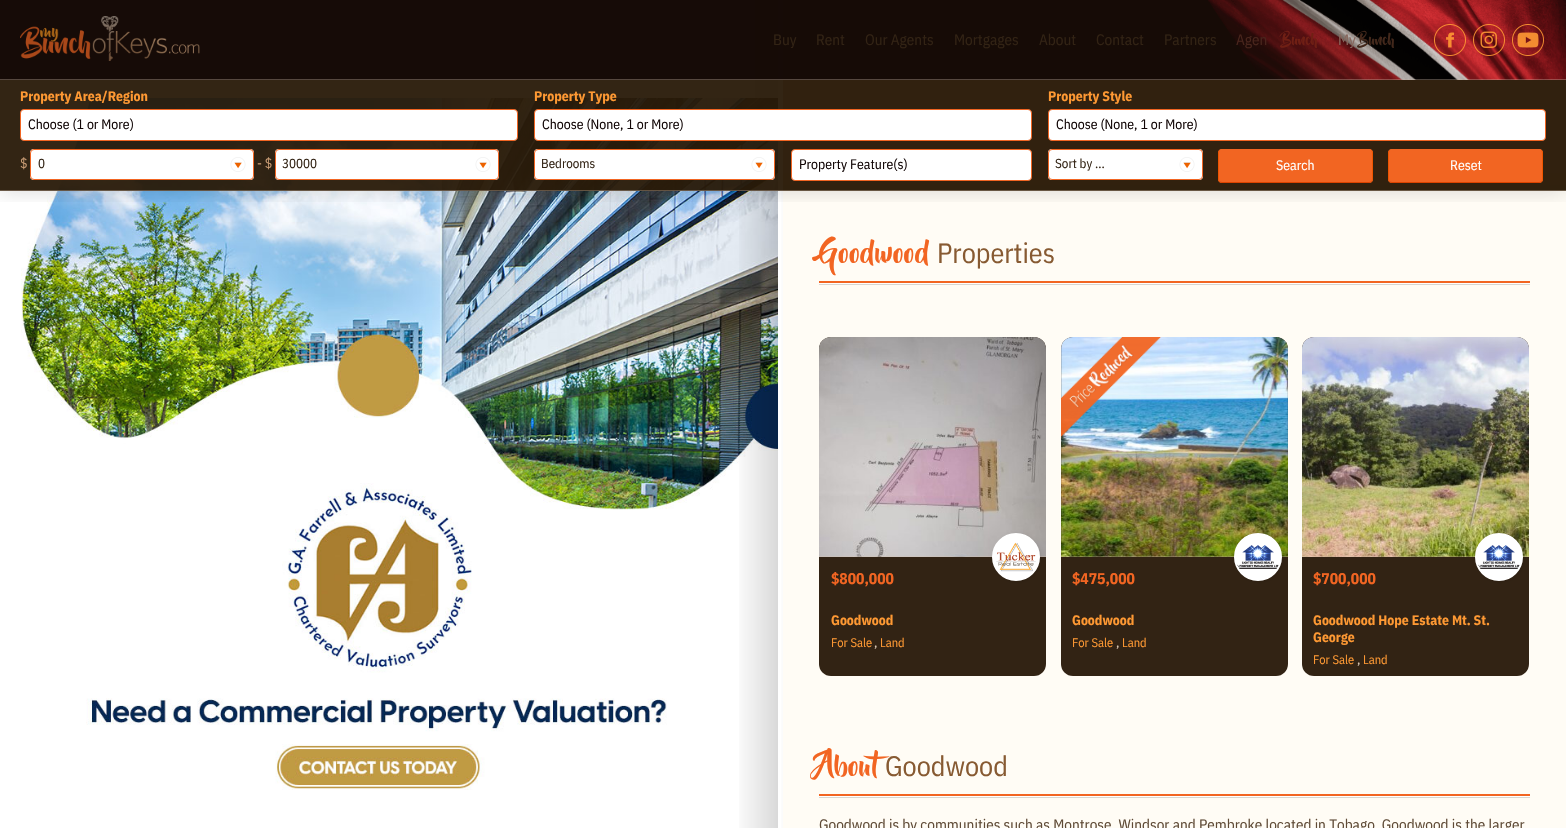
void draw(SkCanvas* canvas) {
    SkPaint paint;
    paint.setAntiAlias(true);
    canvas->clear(0xFFFFFFFF);
    {
        const SkColor colors[] = {0xFFCDAF96, 0xFFA77D5A};
        const float stops[] = {0, 1};
        const SkPoint ends[] = {{783, 0}, {783, 828}};
        paint.setShader(SkGradientShader::MakeLinear(ends, colors, stops, 2, SkTileMode::kClamp));
        paint.setAlpha(255);
    }
    canvas->drawRect(SkRect::MakeXYWH(783, 0, 783, 191), paint);
    canvas->drawImageRect(SkImages::DeferredFromEncodedData(SkData::MakeFromFileName("img6.png")), SkRect::MakeXYWH(21, 98, 757, 692), SkSamplingOptions());
    {
        const SkColor colors[] = {0x00000000, 0x26000000};
        const float stops[] = {0, 1};
        const SkPoint ends[] = {{733, 414}, {778, 414}};
        paint.setShader(SkGradientShader::MakeLinear(ends, colors, stops, 2, SkTileMode::kClamp));
        paint.setAlpha(255);
    }
    canvas->drawRect(SkRect::MakeXYWH(739, 0, 39, 828), paint);
    {
        const SkColor colors[] = {0xFFFFFFFF, 0xFFD9D9D9};
        const float stops[] = {0, 1};
        const SkPoint ends[] = {{778, 414}, {823, 414}};
        paint.setShader(SkGradientShader::MakeLinear(ends, colors, stops, 2, SkTileMode::kClamp));
        paint.setAlpha(255);
    }
    canvas->drawRect(SkRect::MakeXYWH(781, 0, 2, 828), paint);
    paint.setShader(nullptr);
    paint.setColor(0xFFFFFCF5);
    canvas->drawRect(SkRect::MakeXYWH(783, 191, 783, 637), paint);
    canvas->save();
    canvas->clipRect(SkRect::MakeXYWH(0, 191, 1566, 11));
    paint.setColor(0x26000000);
    paint.setMaskFilter(SkMaskFilter::MakeBlur(kNormal_SkBlurStyle, 10));
    canvas->drawRect(SkRect::MakeXYWH(0, 0, 1566, 191), paint);
    paint.setMaskFilter(nullptr);
    canvas->restore();
    paint.setColor(0xF2281907);
    canvas->drawRect(SkRect::MakeXYWH(0, 0, 1566, 191), paint);
    paint.setColor(0xF2140A05);
    canvas->drawRect(SkRect::MakeXYWH(0, 0, 1566, 80), paint);
    canvas->drawImageRect(SkImages::DeferredFromEncodedData(SkData::MakeFromFileName("img1.png")), SkRect::MakeXYWH(1208, 0, 358, 80), SkSamplingOptions());
    paint.setColor(0x54D7C3AF);
    canvas->drawRect(SkRect::MakeXYWH(0, 79, 1566, 1), paint);
    canvas->drawImageRect(SkImages::DeferredFromEncodedData(SkData::MakeFromFileName("img2.png")), SkRect::MakeXYWH(20, 16, 180, 45), SkSamplingOptions());
    SkFont font1(fontMgr->matchFamilyStyle("IBM Plex Sans Condensed", SkFontStyle::Normal()), 15.2f);
    font1.setSubpixel(true);
    paint.setColor(0xFF322314);
    canvas->drawString("Buy", 773, 45, font1, paint);
    canvas->drawString("Rent", 816, 45, font1, paint);
    canvas->drawString("Our Agents", 865, 45, font1, paint);
    canvas->drawString("Mortgages", 954, 45, font1, paint);
    canvas->drawString("About", 1039, 45, font1, paint);
    canvas->drawString("Contact", 1096, 45, font1, paint);
    canvas->drawString("Partners", 1164, 45, font1, paint);
    paint.setColor(0xFF49251C);
    canvas->drawString("Agen", 1236, 45, font1, paint);
    SkFont font2(fontMgr->matchFamilyStyle("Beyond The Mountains", SkFontStyle::Normal()), 15.2f);
    font2.setSubpixel(true);
    paint.setColor(0xFF701F14);
    canvas->drawString("Bunch", 1282, 45, font2, paint);
    paint.setColor(0xFF87675D);
    canvas->drawString("My", 1338, 45, font1, paint);
    paint.setColor(0xFF43281B);
    canvas->drawString("Bunch", 1359, 45, font2, paint);
    canvas->drawImageRect(SkImages::DeferredFromEncodedData(SkData::MakeFromFileName("img3.png")), SkRect::MakeXYWH(1434, 24, 32, 32), SkSamplingOptions());
    canvas->drawImageRect(SkImages::DeferredFromEncodedData(SkData::MakeFromFileName("img4.png")), SkRect::MakeXYWH(1473, 24, 32, 32), SkSamplingOptions());
    canvas->drawImageRect(SkImages::DeferredFromEncodedData(SkData::MakeFromFileName("img5.png")), SkRect::MakeXYWH(1512, 24, 32, 32), SkSamplingOptions());
    paint.setColor(0x54D7C3AF);
    canvas->drawRect(SkRect::MakeXYWH(0, 190, 1566, 1), paint);
    SkFont font3(fontMgr->matchFamilyStyle("IBM Plex Sans Condensed", SkFontStyle::Bold()), 13.75f);
    font3.setSubpixel(true);
    paint.setColor(0xFFFF9933);
    canvas->drawString("Property Area/Region", 20, 101, font3, paint);
    paint.setColor(0xFFFFFFFF);
    canvas->drawRoundRect(SkRect::MakeXYWH(20.5f, 109.5f, 497, 31), 3.5f, 3.5f, paint);
    paint.setStyle(SkPaint::kStroke_Style);
    paint.setStrokeWidth(1);
    paint.setColor(0xFFF26522);
    canvas->drawRoundRect(SkRect::MakeXYWH(20.5f, 109.5f, 497, 31), 3.5f, 3.5f, paint);
    SkFont font4(fontMgr->matchFamilyStyle("IBM Plex Sans Condensed", SkFontStyle::Normal()), 13.75f);
    font4.setSubpixel(true);
    paint.setStyle(SkPaint::kFill_Style);
    paint.setColor(0xFF110606);
    canvas->drawString("Choose (1 or More)", 28, 129, font4, paint);
    paint.setColor(0xFFFF9933);
    canvas->drawString("Property Type", 534, 101, font3, paint);
    paint.setColor(0xFFFFFFFF);
    canvas->drawRoundRect(SkRect::MakeXYWH(534.5f, 109.5f, 497, 31), 3.5f, 3.5f, paint);
    paint.setStyle(SkPaint::kStroke_Style);
    paint.setColor(0xFFF26522);
    canvas->drawRoundRect(SkRect::MakeXYWH(534.5f, 109.5f, 497, 31), 3.5f, 3.5f, paint);
    paint.setStyle(SkPaint::kFill_Style);
    paint.setColor(0xFF110606);
    canvas->drawString("Choose (None, 1 or More)", 542, 129, font4, paint);
    paint.setColor(0xFFFF9933);
    canvas->drawString("Property Style", 1048, 101, font3, paint);
    paint.setColor(0xFFFFFFFF);
    canvas->drawRoundRect(SkRect::MakeXYWH(1048.5f, 109.5f, 497, 31), 3.5f, 3.5f, paint);
    paint.setStyle(SkPaint::kStroke_Style);
    paint.setColor(0xFFF26522);
    canvas->drawRoundRect(SkRect::MakeXYWH(1048.5f, 109.5f, 497, 31), 3.5f, 3.5f, paint);
    paint.setStyle(SkPaint::kFill_Style);
    paint.setColor(0xFF110606);
    canvas->drawString("Choose (None, 1 or More)", 1056, 129, font4, paint);
    paint.setColor(0xFFC89B73);
    canvas->drawString("$", 20, 168, font4, paint);
    paint.setColor(0xFFFFFFFF);
    canvas->drawRoundRect(SkRect::MakeXYWH(30, 149, 224, 31), 4, 4, paint);
    canvas->drawImageRect(SkImages::DeferredFromEncodedData(SkData::MakeFromFileName("img7.png")), SkRect::MakeXYWH(230, 157, 16, 15), SkSamplingOptions());
    paint.setStyle(SkPaint::kStroke_Style);
    paint.setColor(0xFFF26522);
    canvas->drawRoundRect(SkRect::MakeXYWH(30.5f, 149.5f, 223, 30), 3.5f, 3.5f, paint);
    SkFont font5(fontMgr->matchFamilyStyle("IBM Plex Sans Condensed", SkFontStyle::Normal()), 13);
    font5.setSubpixel(true);
    paint.setStyle(SkPaint::kFill_Style);
    paint.setColor(0xFF322314);
    canvas->drawString("0", 38, 168, font5, paint);
    paint.setColor(0xFFC89B73);
    canvas->drawString("- $", 257, 168, font4, paint);
    paint.setColor(0xFFFFFFFF);
    canvas->drawRoundRect(SkRect::MakeXYWH(275, 149, 224, 31), 4, 4, paint);
    canvas->drawImageRect(SkImages::DeferredFromEncodedData(SkData::MakeFromFileName("img7.png")), SkRect::MakeXYWH(475, 157, 16, 15), SkSamplingOptions());
    paint.setStyle(SkPaint::kStroke_Style);
    paint.setColor(0xFFF26522);
    canvas->drawRoundRect(SkRect::MakeXYWH(275.5f, 149.5f, 223, 30), 3.5f, 3.5f, paint);
    paint.setStyle(SkPaint::kFill_Style);
    paint.setColor(0xFF322314);
    canvas->drawString("30000", 282, 168, font5, paint);
    paint.setColor(0xFFFFFFFF);
    canvas->drawRoundRect(SkRect::MakeXYWH(534, 149, 241, 31), 4, 4, paint);
    canvas->drawImageRect(SkImages::DeferredFromEncodedData(SkData::MakeFromFileName("img7.png")), SkRect::MakeXYWH(751, 157, 16, 15), SkSamplingOptions());
    paint.setStyle(SkPaint::kStroke_Style);
    paint.setColor(0xFFF26522);
    canvas->drawRoundRect(SkRect::MakeXYWH(534.5f, 149.5f, 240, 30), 3.5f, 3.5f, paint);
    paint.setStyle(SkPaint::kFill_Style);
    paint.setColor(0xFF322314);
    canvas->drawString("Bedrooms", 541, 168, font5, paint);
    paint.setColor(0xFFFFFFFF);
    canvas->drawRoundRect(SkRect::MakeXYWH(791.5f, 149.5f, 240, 31), 3.5f, 3.5f, paint);
    paint.setStyle(SkPaint::kStroke_Style);
    paint.setColor(0xFFF26522);
    canvas->drawRoundRect(SkRect::MakeXYWH(791.5f, 149.5f, 240, 31), 3.5f, 3.5f, paint);
    paint.setStyle(SkPaint::kFill_Style);
    paint.setColor(0xFF110606);
    canvas->drawString("Property Feature(s)", 799, 169, font4, paint);
    paint.setColor(0xFFFFFFFF);
    canvas->drawRoundRect(SkRect::MakeXYWH(1048, 149, 155, 31), 4, 4, paint);
    canvas->drawImageRect(SkImages::DeferredFromEncodedData(SkData::MakeFromFileName("img7.png")), SkRect::MakeXYWH(1179, 157, 16, 15), SkSamplingOptions());
    paint.setStyle(SkPaint::kStroke_Style);
    paint.setColor(0xFFF26522);
    canvas->drawRoundRect(SkRect::MakeXYWH(1048.5f, 149.5f, 154, 30), 3.5f, 3.5f, paint);
    paint.setStyle(SkPaint::kFill_Style);
    paint.setColor(0xFF322314);
    canvas->drawString("Sort by ...", 1055, 168, font5, paint);
    paint.setColor(0xFFF26522);
    canvas->drawRoundRect(SkRect::MakeXYWH(1218, 149, 155, 34), 4, 4, paint);
    paint.setStyle(SkPaint::kStroke_Style);
    canvas->drawPath(SkPathBuilder().moveTo(1219.5f, 150.5f).cubicTo(1220, 150, 1221, 149.5f, 1222, 149.5f).lineTo(1369, 149.5f).cubicTo(1370, 149.5f, 1371, 150, 1371.5f, 150.5f).detach(), paint);
    paint.setColor(0xFFEE5500);
    canvas->drawPath(SkPathBuilder().moveTo(1371.5f, 150.5f).cubicTo(1372, 151, 1372.5f, 152, 1372.5f, 153).lineTo(1372.5f, 179).cubicTo(1372.5f, 180, 1372, 181, 1371.5f, 181.5f).detach(), paint);
    paint.setColor(0xFFDD4400);
    canvas->drawPath(SkPathBuilder().moveTo(1371.5f, 181.5f).cubicTo(1371, 182, 1370, 182.5f, 1369, 182.5f).lineTo(1222, 182.5f).cubicTo(1221, 182.5f, 1220, 182, 1219.5f, 181.5f).detach(), paint);
    paint.setColor(0xFFEE5500);
    canvas->drawPath(SkPathBuilder().moveTo(1219.5f, 181.5f).cubicTo(1219, 181, 1218.5f, 180, 1218.5f, 179).lineTo(1218.5f, 153).cubicTo(1218.5f, 152, 1219, 151, 1219.5f, 150.5f).detach(), paint);
    paint.setStyle(SkPaint::kFill_Style);
    paint.setColor(0xFFFFFFFF);
    canvas->drawString("Search", 1276, 170, font4, paint);
    paint.setColor(0xFFF26522);
    canvas->drawRoundRect(SkRect::MakeXYWH(1388, 149, 155, 34), 4, 4, paint);
    paint.setStyle(SkPaint::kStroke_Style);
    canvas->drawPath(SkPathBuilder().moveTo(1389.5f, 150.5f).cubicTo(1390, 150, 1391, 149.5f, 1392, 149.5f).lineTo(1539, 149.5f).cubicTo(1540, 149.5f, 1541, 150, 1541.5f, 150.5f).detach(), paint);
    paint.setColor(0xFFEE5500);
    canvas->drawPath(SkPathBuilder().moveTo(1541.5f, 150.5f).cubicTo(1542, 151, 1542.5f, 152, 1542.5f, 153).lineTo(1542.5f, 179).cubicTo(1542.5f, 180, 1542, 181, 1541.5f, 181.5f).detach(), paint);
    paint.setColor(0xFFDD4400);
    canvas->drawPath(SkPathBuilder().moveTo(1541.5f, 181.5f).cubicTo(1541, 182, 1540, 182.5f, 1539, 182.5f).lineTo(1392, 182.5f).cubicTo(1391, 182.5f, 1390, 182, 1389.5f, 181.5f).detach(), paint);
    paint.setColor(0xFFEE5500);
    canvas->drawPath(SkPathBuilder().moveTo(1389.5f, 181.5f).cubicTo(1389, 181, 1388.5f, 180, 1388.5f, 179).lineTo(1388.5f, 153).cubicTo(1388.5f, 152, 1389, 151, 1389.5f, 150.5f).detach(), paint);
    paint.setStyle(SkPaint::kFill_Style);
    paint.setColor(0xFFFFFFFF);
    canvas->drawString("Reset", 1450, 170, font4, paint);
    SkFont font6(fontMgr->matchFamilyStyle("Beyond The Mountains", SkFontStyle::Normal()), 28);
    font6.setSubpixel(true);
    paint.setColor(0xFFF26522);
    canvas->drawString("Goodwood", 819, 263, font6, paint);
    SkFont font7(fontMgr->matchFamilyStyle("IBM Plex Sans Condensed", SkFontStyle::Normal()), 28);
    font7.setSubpixel(true);
    paint.setColor(0xFF875A32);
    canvas->drawString("Properties", 937, 263, font7, paint);
    paint.setColor(0xFFD9D6D0);
    canvas->drawRect(SkRect::MakeXYWH(819, 284, 711, 1), paint);
    paint.setColor(0xFFF26522);
    canvas->drawRect(SkRect::MakeXYWH(819, 281, 711, 2), paint);
    paint.setColor(0xFFFFFFFF);
    canvas->drawRect(SkRect::MakeXYWH(819, 283, 711, 1), paint);
    paint.setColor(0xFF322314);
    canvas->drawRoundRect(SkRect::MakeXYWH(819, 337, 227, 339), 12, 12, paint);
    canvas->drawImageRect(SkImages::DeferredFromEncodedData(SkData::MakeFromFileName("img8.png")), SkRect::MakeXYWH(819, 337, 227, 220), SkSamplingOptions());
    paint.setColor(0x54D7C3AF);
    canvas->drawRect(SkRect::MakeXYWH(819, 556, 227, 1), paint);
    paint.setColor(0x1A000000);
    paint.setMaskFilter(SkMaskFilter::MakeBlur(kNormal_SkBlurStyle, 1.5f));
    canvas->drawRoundRect(SkRect::MakeXYWH(993, 534, 48, 48), 24, 24, paint);
    paint.setMaskFilter(nullptr);
    paint.setColor(0xFFFFFFFF);
    canvas->drawCircle(1016, 557, 23, paint);
    paint.setStyle(SkPaint::kStroke_Style);
    paint.setStrokeWidth(2);
    canvas->drawCircle(1016, 557, 23, paint);
    canvas->drawImageRect(SkImages::DeferredFromEncodedData(SkData::MakeFromFileName("img9.png")), SkRect::MakeXYWH(996, 542, 40, 30), SkSamplingOptions());
    SkFont font8(fontMgr->matchFamilyStyle("IBM Plex Sans Condensed", SkFontStyle::Bold()), 15.5f);
    font8.setSubpixel(true);
    paint.setStyle(SkPaint::kFill_Style);
    paint.setColor(0xFFF26522);
    canvas->drawString("$800,000", 831, 584, font8, paint);
    paint.setColor(0xFFFF9933);
    canvas->drawString("Goodwood", 831, 625, font3, paint);
    SkFont font9(fontMgr->matchFamilyStyle("IBM Plex Sans Condensed", SkFontStyle::Normal()), 12.5f);
    font9.setSubpixel(true);
    canvas->drawString("For Sale", 831, 647, font9, paint);
    paint.setColor(0xFFD7C3AF);
    canvas->drawString(",", 874, 647, font4, paint);
    paint.setColor(0xFFFF9933);
    canvas->drawString("Land", 880, 647, font9, paint);
    paint.setColor(0xFF322314);
    canvas->drawRoundRect(SkRect::MakeXYWH(1061, 337, 227, 339), 12, 12, paint);
    canvas->drawImageRect(SkImages::DeferredFromEncodedData(SkData::MakeFromFileName("img10.png")), SkRect::MakeXYWH(1061, 337, 227, 220), SkSamplingOptions());
    paint.setColor(0x54D7C3AF);
    canvas->drawRect(SkRect::MakeXYWH(1061, 556, 227, 1), paint);
    canvas->drawImageRect(SkImages::DeferredFromEncodedData(SkData::MakeFromFileName("img11.png")), SkRect::MakeXYWH(1061, 337, 100, 100), SkSamplingOptions());
    paint.setColor(0x1A000000);
    paint.setMaskFilter(SkMaskFilter::MakeBlur(kNormal_SkBlurStyle, 1.5f));
    canvas->drawRoundRect(SkRect::MakeXYWH(1235, 534, 48, 48), 24, 24, paint);
    paint.setMaskFilter(nullptr);
    paint.setColor(0xFFFFFFFF);
    canvas->drawCircle(1258, 557, 23, paint);
    paint.setStyle(SkPaint::kStroke_Style);
    canvas->drawCircle(1258, 557, 23, paint);
    canvas->drawImageRect(SkImages::DeferredFromEncodedData(SkData::MakeFromFileName("img12.png")), SkRect::MakeXYWH(1237, 545, 42, 24), SkSamplingOptions());
    paint.setStyle(SkPaint::kFill_Style);
    paint.setColor(0xFFF26522);
    canvas->drawString("$475,000", 1072, 584, font8, paint);
    paint.setColor(0xFFFF9933);
    canvas->drawString("Goodwood", 1072, 625, font3, paint);
    canvas->drawString("For Sale", 1072, 647, font9, paint);
    paint.setColor(0xFFD7C3AF);
    canvas->drawString(",", 1116, 647, font4, paint);
    paint.setColor(0xFFFF9933);
    canvas->drawString("Land", 1122, 647, font9, paint);
    paint.setColor(0xFF322314);
    canvas->drawRoundRect(SkRect::MakeXYWH(1302, 337, 227, 339), 12, 12, paint);
    canvas->drawImageRect(SkImages::DeferredFromEncodedData(SkData::MakeFromFileName("img13.png")), SkRect::MakeXYWH(1302, 337, 227, 220), SkSamplingOptions());
    paint.setColor(0x54D7C3AF);
    canvas->drawRect(SkRect::MakeXYWH(1302, 556, 227, 1), paint);
    paint.setColor(0x1A000000);
    paint.setMaskFilter(SkMaskFilter::MakeBlur(kNormal_SkBlurStyle, 1.5f));
    canvas->drawRoundRect(SkRect::MakeXYWH(1476, 534, 48, 48), 24, 24, paint);
    paint.setMaskFilter(nullptr);
    paint.setColor(0xFFFFFFFF);
    canvas->drawCircle(1499, 557, 23, paint);
    paint.setStyle(SkPaint::kStroke_Style);
    canvas->drawCircle(1499, 557, 23, paint);
    canvas->drawImageRect(SkImages::DeferredFromEncodedData(SkData::MakeFromFileName("img14.png")), SkRect::MakeXYWH(1478, 545, 42, 24), SkSamplingOptions());
    paint.setStyle(SkPaint::kFill_Style);
    paint.setColor(0xFFF26522);
    canvas->drawString("$700,000", 1313, 584, font8, paint);
    paint.setColor(0xFFFF9933);
    canvas->drawString("Goodwood Hope Estate Mt. St.", 1313, 625, font3, paint);
    canvas->drawString("George", 1313, 642, font3, paint);
    canvas->drawString("For Sale", 1313, 664, font9, paint);
    paint.setColor(0xFFD7C3AF);
    canvas->drawString(",", 1357, 664, font4, paint);
    paint.setColor(0xFFFF9933);
    canvas->drawString("Land", 1363, 664, font9, paint);
    paint.setColor(0xFFF26522);
    canvas->drawString("About", 819, 776, font6, paint);
    paint.setColor(0xFF875A32);
    canvas->drawString("Goodwood", 885, 776, font7, paint);
    paint.setColor(0xFFD9D6D0);
    canvas->drawRect(SkRect::MakeXYWH(819, 797, 711, 1), paint);
    paint.setColor(0xFFF26522);
    canvas->drawRect(SkRect::MakeXYWH(819, 794, 711, 2), paint);
    paint.setColor(0xFFFFFFFF);
    canvas->drawRect(SkRect::MakeXYWH(819, 796, 711, 1), paint);
    paint.setColor(0xFF5F4B37);
    canvas->drawString("Goodwood is by communities such as Montrose, Windsor and Pembroke located in Tobago, Goodwood is the larger", 819, 830, font1, paint);
}
